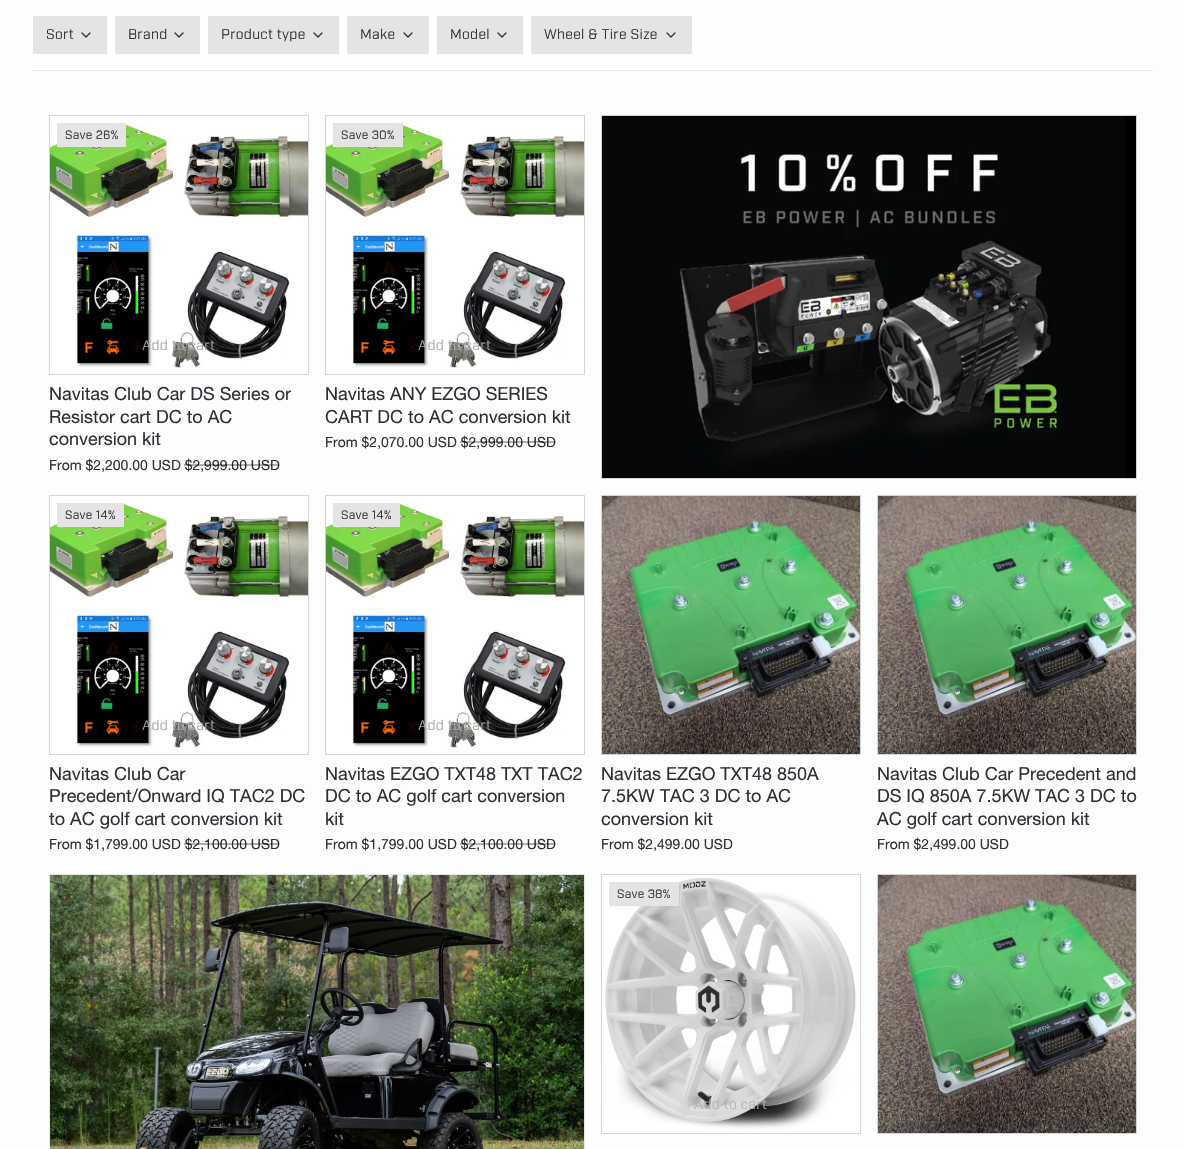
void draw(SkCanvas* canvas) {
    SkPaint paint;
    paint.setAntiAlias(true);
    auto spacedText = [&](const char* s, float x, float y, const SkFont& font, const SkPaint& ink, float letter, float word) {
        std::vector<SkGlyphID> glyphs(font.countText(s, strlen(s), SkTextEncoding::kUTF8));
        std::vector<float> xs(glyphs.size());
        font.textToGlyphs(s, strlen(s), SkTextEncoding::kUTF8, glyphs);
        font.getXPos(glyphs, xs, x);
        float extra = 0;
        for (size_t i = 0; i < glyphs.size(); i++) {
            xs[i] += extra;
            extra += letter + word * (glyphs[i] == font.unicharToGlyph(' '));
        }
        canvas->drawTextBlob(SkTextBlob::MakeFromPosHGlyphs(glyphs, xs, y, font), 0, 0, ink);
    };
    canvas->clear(0xFFFDFDFD);
    paint.setColor(0xFFE6E6E6);
    canvas->drawRect(SkRect::MakeXYWH(33, 70, 1120, 1), paint);
    paint.setColor(0xFFE4E4E4);
    canvas->drawRect(SkRect::MakeXYWH(33, 16, 74, 38), paint);
    SkFont font1(fontMgr->matchFamilyStyle("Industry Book", SkFontStyle::Normal()), 14);
    font1.setSubpixel(true);
    paint.setColor(0xFF2E2E36);
    spacedText("Sort", 46, 39, font1, paint, 0.3f, 0);
    paint.setStyle(SkPaint::kStroke_Style);
    paint.setStrokeWidth(1.3f);
    paint.setStrokeCap(SkPaint::kRound_Cap);
    paint.setStrokeJoin(SkPaint::kRound_Join);
    canvas->drawPath(SkPathBuilder().moveTo(82, 33).lineTo(86, 37).lineTo(90, 33).detach(), paint);
    paint.setStyle(SkPaint::kFill_Style);
    paint.setColor(0xFFE4E4E4);
    canvas->drawRect(SkRect::MakeXYWH(115, 16, 85, 38), paint);
    paint.setColor(0xFF2E2E36);
    spacedText("Brand", 128, 39, font1, paint, 0.3f, 0);
    paint.setStyle(SkPaint::kStroke_Style);
    canvas->drawPath(SkPathBuilder().moveTo(175, 33).lineTo(179, 37).lineTo(183, 33).detach(), paint);
    paint.setStyle(SkPaint::kFill_Style);
    paint.setColor(0xFFE4E4E4);
    canvas->drawRect(SkRect::MakeXYWH(208, 16, 131, 38), paint);
    paint.setColor(0xFF2E2E36);
    spacedText("Product type", 221, 39, font1, paint, 0.3f, 0);
    paint.setStyle(SkPaint::kStroke_Style);
    canvas->drawPath(SkPathBuilder().moveTo(314, 33).lineTo(318, 37).lineTo(322, 33).detach(), paint);
    paint.setStyle(SkPaint::kFill_Style);
    paint.setColor(0xFFE4E4E4);
    canvas->drawRect(SkRect::MakeXYWH(347, 16, 82, 38), paint);
    paint.setColor(0xFF2E2E36);
    spacedText("Make", 360, 39, font1, paint, 0.3f, 0);
    paint.setStyle(SkPaint::kStroke_Style);
    canvas->drawPath(SkPathBuilder().moveTo(404, 33).lineTo(408, 37).lineTo(412, 33).detach(), paint);
    paint.setStyle(SkPaint::kFill_Style);
    paint.setColor(0xFFE4E4E4);
    canvas->drawRect(SkRect::MakeXYWH(437, 16, 86, 38), paint);
    paint.setColor(0xFF2E2E36);
    spacedText("Model", 450, 39, font1, paint, 0.3f, 0);
    paint.setStyle(SkPaint::kStroke_Style);
    canvas->drawPath(SkPathBuilder().moveTo(498, 33).lineTo(502, 37).lineTo(506, 33).detach(), paint);
    paint.setStyle(SkPaint::kFill_Style);
    paint.setColor(0xFFE4E4E4);
    canvas->drawRect(SkRect::MakeXYWH(531, 16, 161, 38), paint);
    paint.setColor(0xFF2E2E36);
    spacedText("Wheel & Tire Size", 544, 39, font1, paint, 0.3f, 0);
    paint.setStyle(SkPaint::kStroke_Style);
    canvas->drawPath(SkPathBuilder().moveTo(667, 33).lineTo(671, 37).lineTo(675, 33).detach(), paint);
    paint.setStrokeWidth(1);
    paint.setStrokeCap(SkPaint::kButt_Cap);
    paint.setStrokeJoin(SkPaint::kMiter_Join);
    paint.setColor(0xFFD5D5D5);
    canvas->drawRect(SkRect::MakeXYWH(49.5f, 115.5f, 259, 259), paint);
    canvas->drawImageRect(SkImages::DeferredFromEncodedData(SkData::MakeFromFileName("img1.png")), SkRect::MakeXYWH(50, 116, 258, 258), SkSamplingOptions());
    paint.setStyle(SkPaint::kFill_Style);
    paint.setColor(0xFFE4E4E4);
    canvas->drawRect(SkRect::MakeXYWH(57, 123, 69, 24), paint);
    SkFont font2(fontMgr->matchFamilyStyle("Industry Book", SkFontStyle::Normal()), 12);
    font2.setSubpixel(true);
    paint.setColor(0xFF2E2E36);
    spacedText("Save 26%", 65, 139, font2, paint, 0.25f, 0);
    paint.setColor(0xFFA6A6A5);
    spacedText("Add to cart", 142, 350, font1, paint, 0.3f, 0);
    SkFont font3(fontMgr->matchFamilyStyle("Helvetica Neue", SkFontStyle::Normal()), 18);
    font3.setSubpixel(true);
    paint.setColor(0xFF2E2E36);
    canvas->drawString("Navitas Club Car DS Series or", 49, 400, font3, paint);
    canvas->drawString("Resistor cart DC to AC", 49, 423, font3, paint);
    canvas->drawString("conversion kit", 49, 445, font3, paint);
    SkFont font4(fontMgr->matchFamilyStyle("Helvetica Neue", SkFontStyle::Normal()), 14);
    font4.setSubpixel(true);
    canvas->drawString("From $2,200.00 USD $2,999.00 USD", 49, 470, font4, paint);
    paint.setColor(0x4D000000);
    canvas->drawRect(SkRect::MakeXYWH(184, 464, 95, 2), paint);
    paint.setStyle(SkPaint::kStroke_Style);
    paint.setColor(0xFFD5D5D5);
    canvas->drawRect(SkRect::MakeXYWH(325.5f, 115.5f, 259, 259), paint);
    canvas->drawImageRect(SkImages::DeferredFromEncodedData(SkData::MakeFromFileName("img1.png")), SkRect::MakeXYWH(326, 116, 258, 258), SkSamplingOptions());
    paint.setStyle(SkPaint::kFill_Style);
    paint.setColor(0xFFE4E4E4);
    canvas->drawRect(SkRect::MakeXYWH(333, 123, 70, 24), paint);
    paint.setColor(0xFF2E2E36);
    spacedText("Save 30%", 341, 139, font2, paint, 0.25f, 0);
    paint.setColor(0xFFA6A6A5);
    spacedText("Add to cart", 418, 350, font1, paint, 0.3f, 0);
    paint.setColor(0xFF2E2E36);
    canvas->drawString("Navitas ANY EZGO SERIES", 325, 400, font3, paint);
    canvas->drawString("CART DC to AC conversion kit", 325, 423, font3, paint);
    canvas->drawString("From $2,070.00 USD $2,999.00 USD", 325, 447, font4, paint);
    paint.setColor(0x4D000000);
    canvas->drawRect(SkRect::MakeXYWH(460, 441, 95, 2), paint);
    paint.setStyle(SkPaint::kStroke_Style);
    paint.setColor(0xFFD5D5D5);
    canvas->drawRect(SkRect::MakeXYWH(601.5f, 115.5f, 535, 363), paint);
    canvas->drawImageRect(SkImages::DeferredFromEncodedData(SkData::MakeFromFileName("img2.png")), SkRect::MakeXYWH(602, 116, 534, 17), SkSamplingOptions());
    canvas->drawImageRect(SkImages::DeferredFromEncodedData(SkData::MakeFromFileName("img3.png")), SkRect::MakeXYWH(602, 133, 534, 345), SkSamplingOptions());
    canvas->drawRect(SkRect::MakeXYWH(49.5f, 495.5f, 259, 259), paint);
    canvas->drawImageRect(SkImages::DeferredFromEncodedData(SkData::MakeFromFileName("img4.png")), SkRect::MakeXYWH(50, 496, 258, 258), SkSamplingOptions());
    paint.setStyle(SkPaint::kFill_Style);
    paint.setColor(0xFFE4E4E4);
    canvas->drawRect(SkRect::MakeXYWH(57, 503, 67, 24), paint);
    paint.setColor(0xFF2E2E36);
    spacedText("Save 14%", 65, 519, font2, paint, 0.25f, 0);
    paint.setColor(0xFFA6A6A5);
    spacedText("Add to cart", 142, 730, font1, paint, 0.3f, 0);
    paint.setColor(0xFF2E2E36);
    canvas->drawString("Navitas Club Car", 49, 780, font3, paint);
    canvas->drawString("Precedent/Onward IQ TAC2 DC", 49, 802, font3, paint);
    canvas->drawString("to AC golf cart conversion kit", 49, 825, font3, paint);
    canvas->drawString("From $1,799.00 USD $2,100.00 USD", 49, 849, font4, paint);
    paint.setColor(0x4D000000);
    canvas->drawRect(SkRect::MakeXYWH(184, 843, 95, 2), paint);
    paint.setStyle(SkPaint::kStroke_Style);
    paint.setColor(0xFFD5D5D5);
    canvas->drawRect(SkRect::MakeXYWH(325.5f, 495.5f, 259, 259), paint);
    canvas->drawImageRect(SkImages::DeferredFromEncodedData(SkData::MakeFromFileName("img4.png")), SkRect::MakeXYWH(326, 496, 258, 258), SkSamplingOptions());
    paint.setStyle(SkPaint::kFill_Style);
    paint.setColor(0xFFE4E4E4);
    canvas->drawRect(SkRect::MakeXYWH(333, 503, 67, 24), paint);
    paint.setColor(0xFF2E2E36);
    spacedText("Save 14%", 341, 519, font2, paint, 0.25f, 0);
    paint.setColor(0xFFA6A6A5);
    spacedText("Add to cart", 418, 730, font1, paint, 0.3f, 0);
    paint.setColor(0xFF2E2E36);
    canvas->drawString("Navitas EZGO TXT48 TXT TAC2", 325, 780, font3, paint);
    canvas->drawString("DC to AC golf cart conversion", 325, 802, font3, paint);
    canvas->drawString("kit", 325, 825, font3, paint);
    canvas->drawString("From $1,799.00 USD $2,100.00 USD", 325, 849, font4, paint);
    paint.setColor(0x4D000000);
    canvas->drawRect(SkRect::MakeXYWH(460, 843, 95, 2), paint);
    paint.setStyle(SkPaint::kStroke_Style);
    paint.setColor(0xFFD5D5D5);
    canvas->drawRect(SkRect::MakeXYWH(601.5f, 495.5f, 259, 259), paint);
    canvas->drawImageRect(SkImages::DeferredFromEncodedData(SkData::MakeFromFileName("img5.png")), SkRect::MakeXYWH(602, 496, 258, 258), SkSamplingOptions());
    paint.setStyle(SkPaint::kFill_Style);
    paint.setColor(0xFF2E2E36);
    canvas->drawString("Navitas EZGO TXT48 850A", 601, 780, font3, paint);
    canvas->drawString("7.5KW TAC 3 DC to AC", 601, 802, font3, paint);
    canvas->drawString("conversion kit", 601, 825, font3, paint);
    canvas->drawString("From $2,499.00 USD", 601, 849, font4, paint);
    paint.setStyle(SkPaint::kStroke_Style);
    paint.setColor(0xFFD5D5D5);
    canvas->drawRect(SkRect::MakeXYWH(877.5f, 495.5f, 259, 259), paint);
    canvas->drawImageRect(SkImages::DeferredFromEncodedData(SkData::MakeFromFileName("img5.png")), SkRect::MakeXYWH(878, 496, 258, 258), SkSamplingOptions());
    paint.setStyle(SkPaint::kFill_Style);
    paint.setColor(0xFF2E2E36);
    canvas->drawString("Navitas Club Car Precedent and", 877, 780, font3, paint);
    canvas->drawString("DS IQ 850A 7.5KW TAC 3 DC to", 877, 802, font3, paint);
    canvas->drawString("AC golf cart conversion kit", 877, 825, font3, paint);
    canvas->drawString("From $2,499.00 USD", 877, 849, font4, paint);
    paint.setStyle(SkPaint::kStroke_Style);
    paint.setColor(0xFFE6E6E6);
    canvas->drawRect(SkRect::MakeXYWH(49.5f, 874.5f, 535, 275), paint);
    canvas->drawImageRect(SkImages::DeferredFromEncodedData(SkData::MakeFromFileName("img6.png")), SkRect::MakeXYWH(50, 875, 534, 274), SkSamplingOptions());
    paint.setColor(0xFFD5D5D5);
    canvas->drawRect(SkRect::MakeXYWH(601.5f, 874.5f, 259, 259), paint);
    canvas->drawImageRect(SkImages::DeferredFromEncodedData(SkData::MakeFromFileName("img7.png")), SkRect::MakeXYWH(602, 875, 258, 258), SkSamplingOptions());
    paint.setStyle(SkPaint::kFill_Style);
    paint.setColor(0xFFE4E4E4);
    canvas->drawRect(SkRect::MakeXYWH(609, 882, 70, 24), paint);
    paint.setColor(0xFF2E2E36);
    spacedText("Save 38%", 617, 898, font2, paint, 0.25f, 0);
    paint.setColor(0xFFB4B4B4);
    spacedText("Add to cart", 694, 1109, font1, paint, 0.3f, 0);
    paint.setStyle(SkPaint::kStroke_Style);
    paint.setColor(0xFFD5D5D5);
    canvas->drawRect(SkRect::MakeXYWH(877.5f, 874.5f, 259, 259), paint);
    canvas->drawImageRect(SkImages::DeferredFromEncodedData(SkData::MakeFromFileName("img5.png")), SkRect::MakeXYWH(878, 875, 258, 258), SkSamplingOptions());
}
